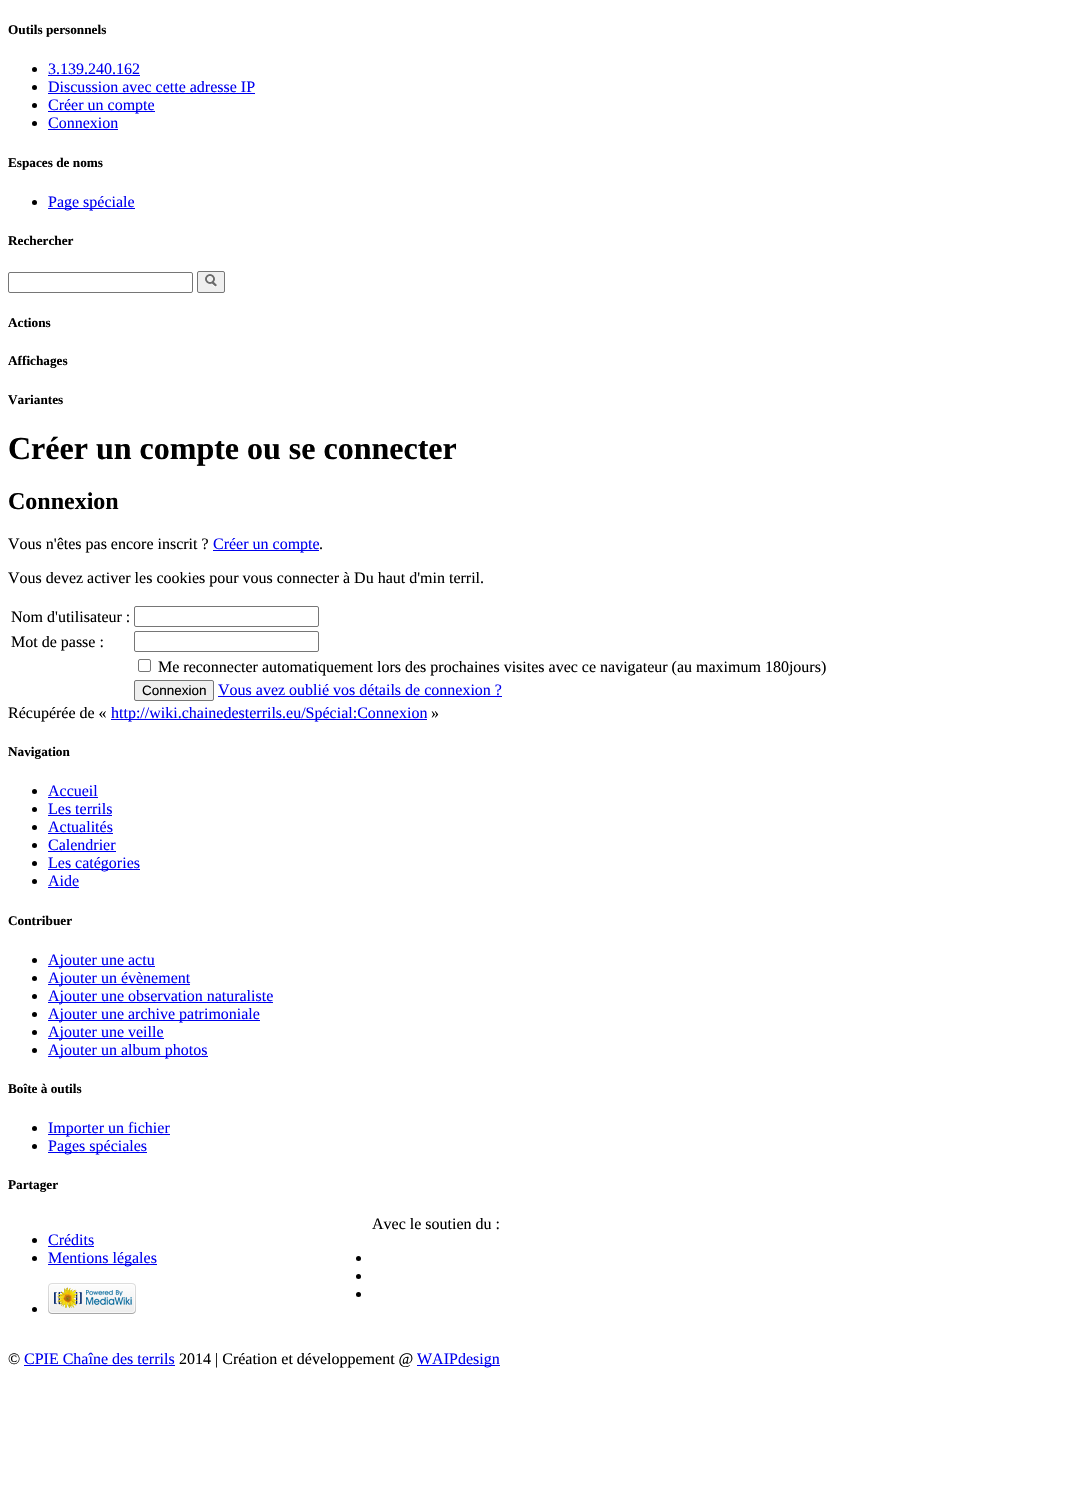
void draw(SkCanvas* canvas) {
    SkPaint paint;
    paint.setAntiAlias(true);
    canvas->clear(0xFFFFFFFF);
    SkFont font1(fontMgr->matchFamilyStyle("Liberation Serif", SkFontStyle::Bold()), 13.25f);
    font1.setSubpixel(true);
    paint.setColor(0xFF000000);
    canvas->drawString("Outils personnels", 8, 34, font1, paint);
    canvas->drawCircle(34.5f, 69.5f, 2.5f, paint);
    SkFont font2(fontMgr->matchFamilyStyle("Liberation Serif", SkFontStyle::Normal()), 16);
    font2.setSubpixel(true);
    paint.setColor(0xFF0000EE);
    canvas->drawString("3.139.240.162", 48, 74, font2, paint);
    canvas->drawRect(SkRect::MakeXYWH(48, 75, 92, 1), paint);
    paint.setColor(0xFF000000);
    canvas->drawCircle(34.5f, 87.5f, 2.5f, paint);
    paint.setColor(0xFF0000EE);
    canvas->drawString("Discussion avec cette adresse IP", 48, 92, font2, paint);
    canvas->drawRect(SkRect::MakeXYWH(48, 93, 207, 1), paint);
    paint.setColor(0xFF000000);
    canvas->drawCircle(34.5f, 105.5f, 2.5f, paint);
    paint.setColor(0xFF0000EE);
    canvas->drawRect(SkRect::MakeXYWH(48, 111, 107, 1), paint);
    canvas->drawString("Créer un compte", 48, 110, font2, paint);
    paint.setColor(0xFF000000);
    canvas->drawCircle(34.5f, 123.5f, 2.5f, paint);
    paint.setColor(0xFF0000EE);
    canvas->drawString("Connexion", 48, 128, font2, paint);
    canvas->drawRect(SkRect::MakeXYWH(48, 129, 70, 1), paint);
    paint.setColor(0xFF000000);
    canvas->drawString("Espaces de noms", 8, 167, font1, paint);
    canvas->drawCircle(34.5f, 202.5f, 2.5f, paint);
    paint.setColor(0xFF0000EE);
    canvas->drawRect(SkRect::MakeXYWH(48, 208, 87, 1), paint);
    canvas->drawString("Page spéciale", 48, 207, font2, paint);
    paint.setColor(0xFF000000);
    canvas->drawString("Rechercher", 8, 245, font1, paint);
    paint.setStyle(SkPaint::kStroke_Style);
    paint.setStrokeWidth(1);
    paint.setColor(0xFF767676);
    canvas->drawRoundRect(SkRect::MakeXYWH(8.5f, 272.5f, 184, 20), 1.5f, 1.5f, paint);
    paint.setStyle(SkPaint::kFill_Style);
    paint.setColor(0xFFEFEFEF);
    canvas->drawRoundRect(SkRect::MakeXYWH(197.5f, 271.5f, 27, 21), 1.5f, 1.5f, paint);
    paint.setStyle(SkPaint::kStroke_Style);
    paint.setColor(0xFF767676);
    canvas->drawRoundRect(SkRect::MakeXYWH(197.5f, 271.5f, 27, 21), 1.5f, 1.5f, paint);
    canvas->drawImageRect(SkImages::DeferredFromEncodedData(SkData::MakeFromFileName("img1.png")), SkRect::MakeXYWH(205, 274, 12, 13), SkSamplingOptions());
    paint.setStyle(SkPaint::kFill_Style);
    paint.setColor(0xFF000000);
    canvas->drawString("Actions", 8, 327, font1, paint);
    canvas->drawString("Affichages", 8, 365, font1, paint);
    canvas->drawString("Variantes", 8, 404, font1, paint);
    SkFont font3(fontMgr->matchFamilyStyle("Liberation Serif", SkFontStyle::Bold()), 32);
    font3.setSubpixel(true);
    canvas->drawString("Créer un compte ou se connecter", 8, 459, font3, paint);
    SkFont font4(fontMgr->matchFamilyStyle("Liberation Serif", SkFontStyle::Bold()), 24);
    font4.setSubpixel(true);
    canvas->drawString("Connexion", 8, 509, font4, paint);
    canvas->drawString("Vous n'êtes pas encore inscrit ?", 8, 549, font2, paint);
    paint.setColor(0xFF0000EE);
    canvas->drawRect(SkRect::MakeXYWH(213, 550, 106, 1), paint);
    canvas->drawString("Créer un compte", 213, 549, font2, paint);
    paint.setColor(0xFF000000);
    canvas->drawString(".", 319, 549, font2, paint);
    canvas->drawString("Vous devez activer les cookies pour vous connecter à Du haut d'min terril.", 8, 583, font2, paint);
    canvas->drawString("Nom d'utilisateur :", 11, 622, font2, paint);
    paint.setStyle(SkPaint::kStroke_Style);
    paint.setColor(0xFF767676);
    canvas->drawRoundRect(SkRect::MakeXYWH(134.5f, 606.5f, 184, 20), 1.5f, 1.5f, paint);
    paint.setStyle(SkPaint::kFill_Style);
    paint.setColor(0xFF000000);
    canvas->drawString("Mot de passe :", 11, 647, font2, paint);
    paint.setStyle(SkPaint::kStroke_Style);
    paint.setColor(0xFF767676);
    canvas->drawRoundRect(SkRect::MakeXYWH(134.5f, 631.5f, 184, 20), 1.5f, 1.5f, paint);
    canvas->drawRoundRect(SkRect::MakeXYWH(138.5f, 659.5f, 12, 12), 1.5f, 1.5f, paint);
    paint.setStyle(SkPaint::kFill_Style);
    paint.setColor(0xFF000000);
    canvas->drawString("Me reconnecter automatiquement lors des prochaines visites avec ce navigateur (au maximum 180jours)", 158, 672, font2, paint);
    paint.setColor(0xFFEFEFEF);
    canvas->drawRoundRect(SkRect::MakeXYWH(134.5f, 680.5f, 79, 20), 1.5f, 1.5f, paint);
    paint.setStyle(SkPaint::kStroke_Style);
    paint.setColor(0xFF767676);
    canvas->drawRoundRect(SkRect::MakeXYWH(134.5f, 680.5f, 79, 20), 1.5f, 1.5f, paint);
    SkFont font5(fontMgr->matchFamilyStyle("Liberation Sans", SkFontStyle::Normal()), 13.5f);
    font5.setSubpixel(true);
    paint.setStyle(SkPaint::kFill_Style);
    paint.setColor(0xFF000000);
    canvas->drawString("Connexion", 142, 695, font5, paint);
    paint.setColor(0xFF0000EE);
    canvas->drawString("Vous avez oublié vos détails de connexion ?", 218, 695, font2, paint);
    canvas->drawRect(SkRect::MakeXYWH(218, 696, 284, 1), paint);
    paint.setColor(0xFF000000);
    canvas->drawString("Récupérée de «", 8, 718, font2, paint);
    paint.setColor(0xFF0000EE);
    canvas->drawRect(SkRect::MakeXYWH(111, 719, 316, 1), paint);
    canvas->drawString("http://wiki.chainedesterrils.eu/Spécial:Connexion", 111, 718, font2, paint);
    paint.setColor(0xFF000000);
    canvas->drawString("»", 431, 718, font2, paint);
    canvas->drawString("Navigation", 8, 756, font1, paint);
    canvas->drawCircle(34.5f, 791.5f, 2.5f, paint);
    paint.setColor(0xFF0000EE);
    canvas->drawString("Accueil", 48, 796, font2, paint);
    canvas->drawRect(SkRect::MakeXYWH(48, 797, 50, 1), paint);
    paint.setColor(0xFF000000);
    canvas->drawCircle(34.5f, 809.5f, 2.5f, paint);
    paint.setColor(0xFF0000EE);
    canvas->drawString("Les terrils", 48, 814, font2, paint);
    canvas->drawRect(SkRect::MakeXYWH(48, 815, 64, 1), paint);
    paint.setColor(0xFF000000);
    canvas->drawCircle(34.5f, 827.5f, 2.5f, paint);
    paint.setColor(0xFF0000EE);
    canvas->drawString("Actualités", 48, 832, font2, paint);
    canvas->drawRect(SkRect::MakeXYWH(48, 833, 65, 1), paint);
    paint.setColor(0xFF000000);
    canvas->drawCircle(34.5f, 845.5f, 2.5f, paint);
    paint.setColor(0xFF0000EE);
    canvas->drawString("Calendrier", 48, 850, font2, paint);
    canvas->drawRect(SkRect::MakeXYWH(48, 851, 68, 1), paint);
    paint.setColor(0xFF000000);
    canvas->drawCircle(34.5f, 863.5f, 2.5f, paint);
    paint.setColor(0xFF0000EE);
    canvas->drawRect(SkRect::MakeXYWH(48, 869, 92, 1), paint);
    canvas->drawString("Les catégories", 48, 868, font2, paint);
    paint.setColor(0xFF000000);
    canvas->drawCircle(34.5f, 881.5f, 2.5f, paint);
    paint.setColor(0xFF0000EE);
    canvas->drawString("Aide", 48, 886, font2, paint);
    canvas->drawRect(SkRect::MakeXYWH(48, 887, 31, 1), paint);
    paint.setColor(0xFF000000);
    canvas->drawString("Contribuer", 8, 925, font1, paint);
    canvas->drawCircle(34.5f, 960.5f, 2.5f, paint);
    paint.setColor(0xFF0000EE);
    canvas->drawRect(SkRect::MakeXYWH(48, 966, 107, 1), paint);
    canvas->drawString("Ajouter une actu", 48, 965, font2, paint);
    paint.setColor(0xFF000000);
    canvas->drawCircle(34.5f, 978.5f, 2.5f, paint);
    paint.setColor(0xFF0000EE);
    canvas->drawRect(SkRect::MakeXYWH(48, 984, 142, 1), paint);
    canvas->drawString("Ajouter un évènement", 48, 983, font2, paint);
    paint.setColor(0xFF000000);
    canvas->drawCircle(34.5f, 996.5f, 2.5f, paint);
    paint.setColor(0xFF0000EE);
    canvas->drawRect(SkRect::MakeXYWH(48, 1002, 225, 1), paint);
    canvas->drawString("Ajouter une observation naturaliste", 48, 1001, font2, paint);
    paint.setColor(0xFF000000);
    canvas->drawCircle(34.5f, 1014.5f, 2.5f, paint);
    paint.setColor(0xFF0000EE);
    canvas->drawRect(SkRect::MakeXYWH(48, 1020, 212, 1), paint);
    canvas->drawString("Ajouter une archive patrimoniale", 48, 1019, font2, paint);
    paint.setColor(0xFF000000);
    canvas->drawCircle(34.5f, 1032.5f, 2.5f, paint);
    paint.setColor(0xFF0000EE);
    canvas->drawRect(SkRect::MakeXYWH(48, 1038, 116, 1), paint);
    canvas->drawString("Ajouter une veille", 48, 1037, font2, paint);
    paint.setColor(0xFF000000);
    canvas->drawCircle(34.5f, 1050.5f, 2.5f, paint);
    paint.setColor(0xFF0000EE);
    canvas->drawRect(SkRect::MakeXYWH(48, 1056, 160, 1), paint);
    canvas->drawString("Ajouter un album photos", 48, 1055, font2, paint);
    paint.setColor(0xFF000000);
    canvas->drawString("Boîte à outils", 8, 1093, font1, paint);
    canvas->drawCircle(34.5f, 1128.5f, 2.5f, paint);
    paint.setColor(0xFF0000EE);
    canvas->drawRect(SkRect::MakeXYWH(48, 1134, 122, 1), paint);
    canvas->drawString("Importer un fichier", 48, 1133, font2, paint);
    paint.setColor(0xFF000000);
    canvas->drawCircle(34.5f, 1146.5f, 2.5f, paint);
    paint.setColor(0xFF0000EE);
    canvas->drawRect(SkRect::MakeXYWH(48, 1152, 99, 1), paint);
    canvas->drawString("Pages spéciales", 48, 1151, font2, paint);
    paint.setColor(0xFF000000);
    canvas->drawString("Partager", 8, 1189, font1, paint);
    canvas->drawString("Avec le soutien du :", 372, 1229, font2, paint);
    canvas->drawCircle(358.5f, 1258.5f, 2.5f, paint);
    canvas->drawCircle(358.5f, 1276.5f, 2.5f, paint);
    canvas->drawCircle(358.5f, 1294.5f, 2.5f, paint);
    canvas->drawCircle(34.5f, 1240.5f, 2.5f, paint);
    paint.setColor(0xFF0000EE);
    canvas->drawString("Crédits", 48, 1245, font2, paint);
    canvas->drawRect(SkRect::MakeXYWH(48, 1246, 46, 1), paint);
    paint.setColor(0xFF000000);
    canvas->drawCircle(34.5f, 1258.5f, 2.5f, paint);
    paint.setColor(0xFF0000EE);
    canvas->drawRect(SkRect::MakeXYWH(48, 1264, 109, 1), paint);
    canvas->drawString("Mentions légales", 48, 1263, font2, paint);
    paint.setColor(0xFF000000);
    canvas->drawCircle(34.5f, 1309.5f, 2.5f, paint);
    canvas->drawImageRect(SkImages::DeferredFromEncodedData(SkData::MakeFromFileName("img2.png")), SkRect::MakeXYWH(48, 1283, 88, 31), SkSamplingOptions());
    canvas->drawString("©", 8, 1364, font2, paint);
    paint.setColor(0xFF0000EE);
    canvas->drawString("CPIE Chaîne des terrils", 24, 1364, font2, paint);
    canvas->drawRect(SkRect::MakeXYWH(24, 1365, 151, 1), paint);
    paint.setColor(0xFF000000);
    canvas->drawString("2014 | Création et développement @", 179, 1364, font2, paint);
    paint.setColor(0xFF0000EE);
    canvas->drawRect(SkRect::MakeXYWH(417, 1365, 83, 1), paint);
    canvas->drawString("WAIPdesign", 417, 1364, font2, paint);
}
